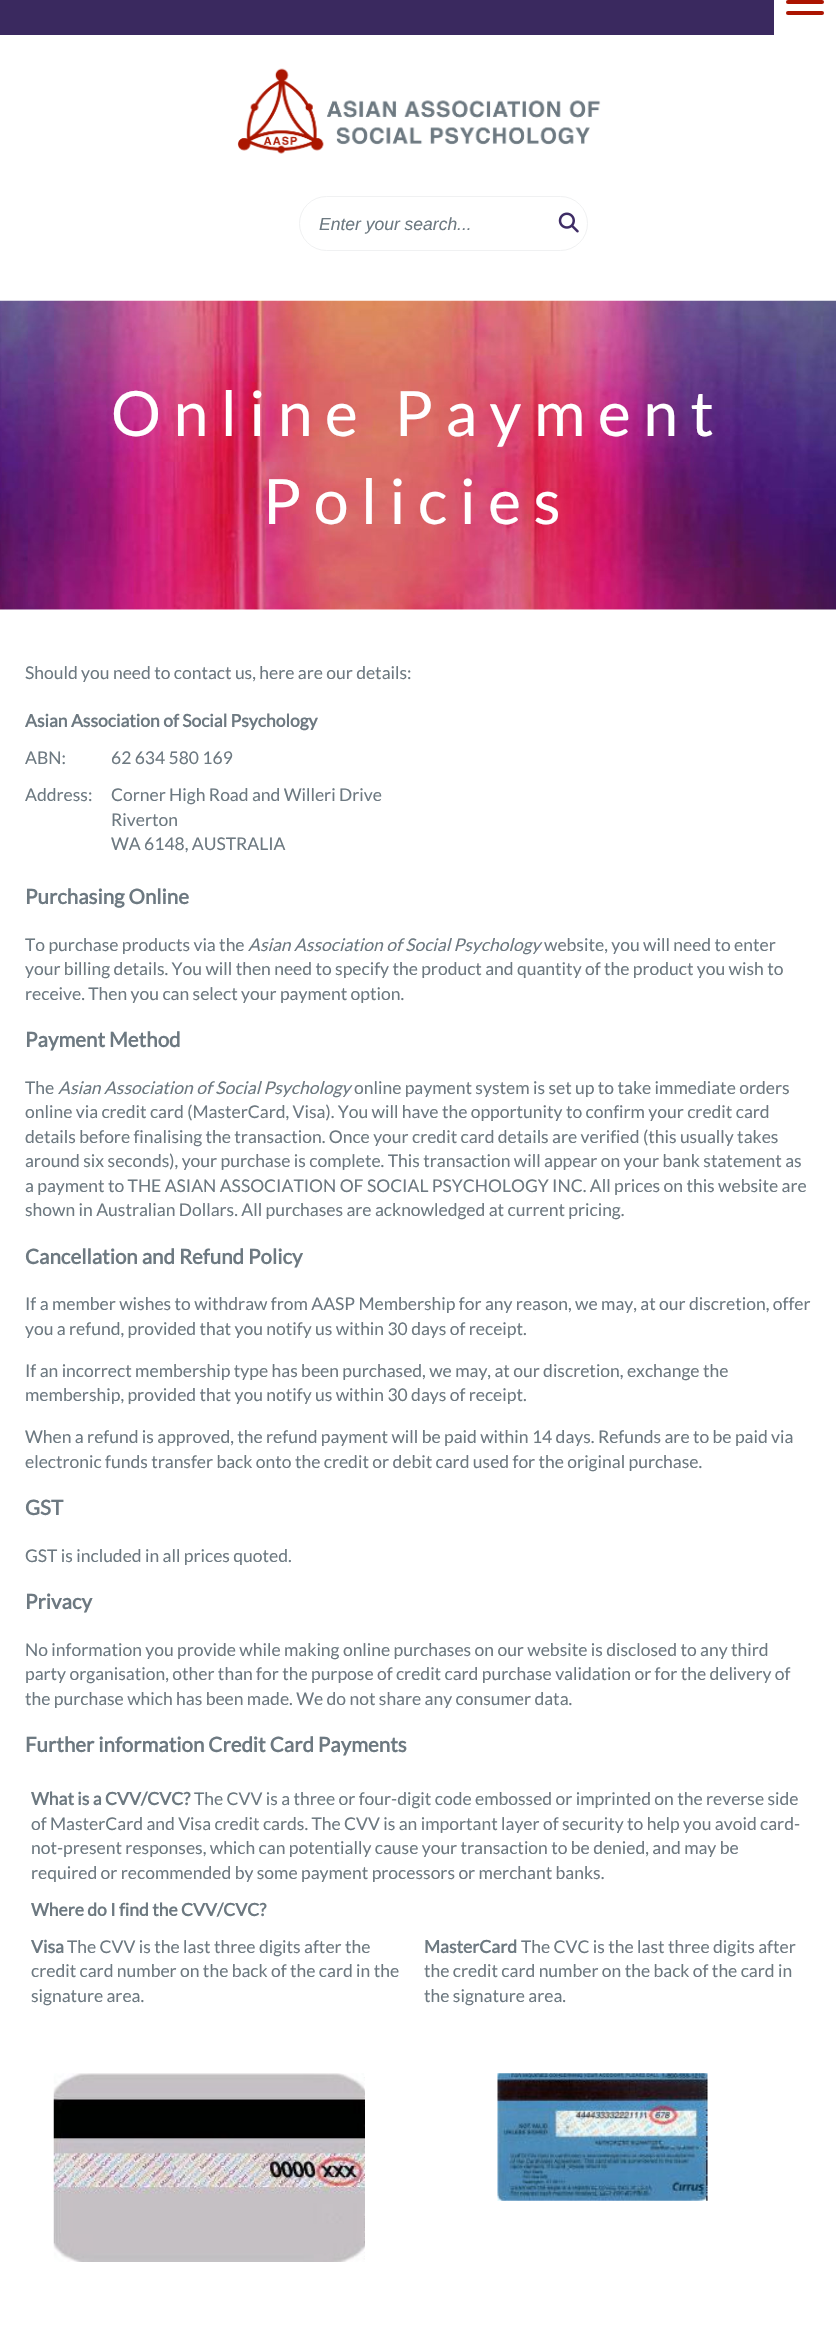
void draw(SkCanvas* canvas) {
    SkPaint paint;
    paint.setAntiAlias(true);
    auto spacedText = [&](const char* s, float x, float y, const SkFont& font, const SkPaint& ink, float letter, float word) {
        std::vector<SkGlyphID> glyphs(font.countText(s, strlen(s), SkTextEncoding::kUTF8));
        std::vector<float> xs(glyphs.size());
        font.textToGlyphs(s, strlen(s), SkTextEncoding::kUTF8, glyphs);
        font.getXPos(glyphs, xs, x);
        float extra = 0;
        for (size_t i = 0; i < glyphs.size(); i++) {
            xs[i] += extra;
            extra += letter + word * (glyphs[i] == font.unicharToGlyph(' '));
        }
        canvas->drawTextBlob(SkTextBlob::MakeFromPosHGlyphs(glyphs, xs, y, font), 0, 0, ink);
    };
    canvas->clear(0xFFFFFFFF);
    paint.setColor(0xFF3A295F);
    canvas->drawRect(SkRect::MakeXYWH(0, 0, 774, 35), paint);
    paint.setColor(0xFFAB1400);
    canvas->drawRoundRect(SkRect::MakeXYWH(786, 0, 38, 4), 2, 2, paint);
    canvas->drawRoundRect(SkRect::MakeXYWH(786, 11, 38, 4), 2, 2, paint);
    canvas->drawImageRect(SkImages::DeferredFromEncodedData(SkData::MakeFromFileName("img1.png")), SkRect::MakeXYWH(237, 68, 364, 86), SkSamplingOptions());
    paint.setStyle(SkPaint::kStroke_Style);
    paint.setStrokeWidth(1);
    paint.setColor(0xFFF0F1F2);
    canvas->drawRoundRect(SkRect::MakeXYWH(299.5f, 196.5f, 288, 54), 27, 27, paint);
    SkFont font1(fontMgr->matchFamilyStyle("Liberation Sans", SkFontStyle::Italic()), 17.5f);
    font1.setSubpixel(true);
    paint.setStyle(SkPaint::kFill_Style);
    paint.setColor(0xFF6D7981);
    canvas->drawString("Enter your search...", 319, 230, font1, paint);
    canvas->drawImageRect(SkImages::DeferredFromEncodedData(SkData::MakeFromFileName("img2.png")), SkRect::MakeXYWH(558, 212, 21, 21), SkSamplingOptions());
    canvas->drawImageRect(SkImages::DeferredFromEncodedData(SkData::MakeFromFileName("img3.png")), SkRect::MakeXYWH(0, 300, 836, 310), SkSamplingOptions());
    SkFont font2(fontMgr->matchFamilyStyle("Lato", SkFontStyle::Normal()), 62.5f);
    font2.setSubpixel(true);
    paint.setColor(0xFFFFFFFF);
    spacedText("Online Payment", 111, 436, font2, paint, 12.5f, 0);
    spacedText("Policies", 263, 524, font2, paint, 12.5f, 0);
    SkFont font3(fontMgr->matchFamilyStyle("Lato", SkFontStyle::Normal()), 17.5f);
    font3.setSubpixel(true);
    paint.setColor(0xFF6D7981);
    canvas->drawString("Should you need to contact us, here are our details:", 25, 679, font3, paint);
    SkFont font4(fontMgr->matchFamilyStyle("Lato", SkFontStyle::Bold()), 17.5f);
    font4.setSubpixel(true);
    canvas->drawString("Asian Association of Social Psychology", 25, 727, font4, paint);
    canvas->drawString("ABN:", 25, 764, font3, paint);
    canvas->drawString("62 634 580 169", 111, 764, font3, paint);
    canvas->drawString("Address:", 25, 801, font3, paint);
    canvas->drawString("Corner High Road and Willeri Drive", 111, 801, font3, paint);
    canvas->drawString("Riverton", 111, 826, font3, paint);
    canvas->drawString("WA 6148, AUSTRALIA", 111, 850, font3, paint);
    SkFont font5(fontMgr->matchFamilyStyle("Lato", SkFontStyle::Bold()), 20.5f);
    font5.setSubpixel(true);
    canvas->drawString("Purchasing Online", 25, 904, font5, paint);
    canvas->drawString("To purchase products via the", 25, 951, font3, paint);
    SkFont font6(fontMgr->matchFamilyStyle("Lato", SkFontStyle::Italic()), 17.5f);
    font6.setSubpixel(true);
    canvas->drawString("Asian Association of Social Psychology", 248, 951, font6, paint);
    canvas->drawString("website, you will need to enter", 544, 951, font3, paint);
    canvas->drawString("your billing details. You will then need to specify the product and quantity of the product you wish to", 25, 975, font3, paint);
    canvas->drawString("receive. Then you can select your payment option.", 25, 1000, font3, paint);
    canvas->drawString("Payment Method", 25, 1047, font5, paint);
    canvas->drawString("The", 25, 1094, font3, paint);
    canvas->drawString("Asian Association of Social Psychology", 58, 1094, font6, paint);
    canvas->drawString("online payment system is set up to take immediate orders", 354, 1094, font3, paint);
    canvas->drawString("online via credit card (MasterCard, Visa). You will have the opportunity to confirm your credit card", 25, 1118, font3, paint);
    canvas->drawString("details before finalising the transaction. Once your credit card details are verified (this usually takes", 25, 1143, font3, paint);
    canvas->drawString("around six seconds), your purchase is complete. This transaction will appear on your bank statement as", 25, 1167, font3, paint);
    canvas->drawString("a payment to THE ASIAN ASSOCIATION OF SOCIAL PSYCHOLOGY INC. All prices on this website are", 25, 1192, font3, paint);
    canvas->drawString("shown in Australian Dollars. All purchases are acknowledged at current pricing.", 25, 1216, font3, paint);
    canvas->drawString("Cancellation and Refund Policy", 25, 1264, font5, paint);
    canvas->drawString("If a member wishes to withdraw from AASP Membership for any reason, we may, at our discretion, offer", 25, 1310, font3, paint);
    canvas->drawString("you a refund, provided that you notify us within 30 days of receipt.", 25, 1335, font3, paint);
    canvas->drawString("If an incorrect membership type has been purchased, we may, at our discretion, exchange the", 25, 1377, font3, paint);
    canvas->drawString("membership, provided that you notify us within 30 days of receipt.", 25, 1401, font3, paint);
    canvas->drawString("When a refund is approved, the refund payment will be paid within 14 days. Refunds are to be paid via", 25, 1443, font3, paint);
    canvas->drawString("electronic funds transfer back onto the credit or debit card used for the original purchase.", 25, 1468, font3, paint);
    canvas->drawString("GST", 25, 1515, font5, paint);
    canvas->drawString("GST is included in all prices quoted.", 25, 1562, font3, paint);
    canvas->drawString("Privacy", 25, 1609, font5, paint);
    canvas->drawString("No information you provide while making online purchases on our website is disclosed to any third", 25, 1656, font3, paint);
    canvas->drawString("party organisation, other than for the purpose of credit card purchase validation or for the delivery of", 25, 1680, font3, paint);
    canvas->drawString("the purchase which has been made. We do not share any consumer data.", 25, 1705, font3, paint);
    canvas->drawString("Further information Credit Card Payments", 25, 1752, font5, paint);
    canvas->drawString("What is a CVV/CVC?", 31, 1805, font4, paint);
    canvas->drawString("The CVV is a three or four-digit code embossed or imprinted on the reverse side", 194, 1805, font3, paint);
    canvas->drawString("of MasterCard and Visa credit cards. The CVV is an important layer of security to help you avoid card-", 31, 1830, font3, paint);
    canvas->drawString("not-present responses, which can potentially cause your transaction to be denied, and may be", 31, 1854, font3, paint);
    canvas->drawString("required or recommended by some payment processors or merchant banks.", 31, 1879, font3, paint);
    canvas->drawString("Where do I find the CVV/CVC?", 31, 1916, font4, paint);
    canvas->drawString("Visa", 31, 1953, font4, paint);
    canvas->drawString("The CVV is the last three digits after the", 67, 1953, font3, paint);
    canvas->drawString("credit card number on the back of the card in the", 31, 1977, font3, paint);
    canvas->drawString("signature area.", 31, 2002, font3, paint);
    canvas->drawImageRect(SkImages::DeferredFromEncodedData(SkData::MakeFromFileName("img4.png")), SkRect::MakeXYWH(53, 2073, 312, 189), SkSamplingOptions());
    canvas->drawString("MasterCard", 424, 1953, font4, paint);
    canvas->drawString("The CVC is the last three digits after", 521, 1953, font3, paint);
    canvas->drawString("the credit card number on the back of the card in", 424, 1977, font3, paint);
    canvas->drawString("the signature area.", 424, 2002, font3, paint);
    canvas->drawImageRect(SkImages::DeferredFromEncodedData(SkData::MakeFromFileName("img5.png")), SkRect::MakeXYWH(497, 2073, 211, 128), SkSamplingOptions());
}
